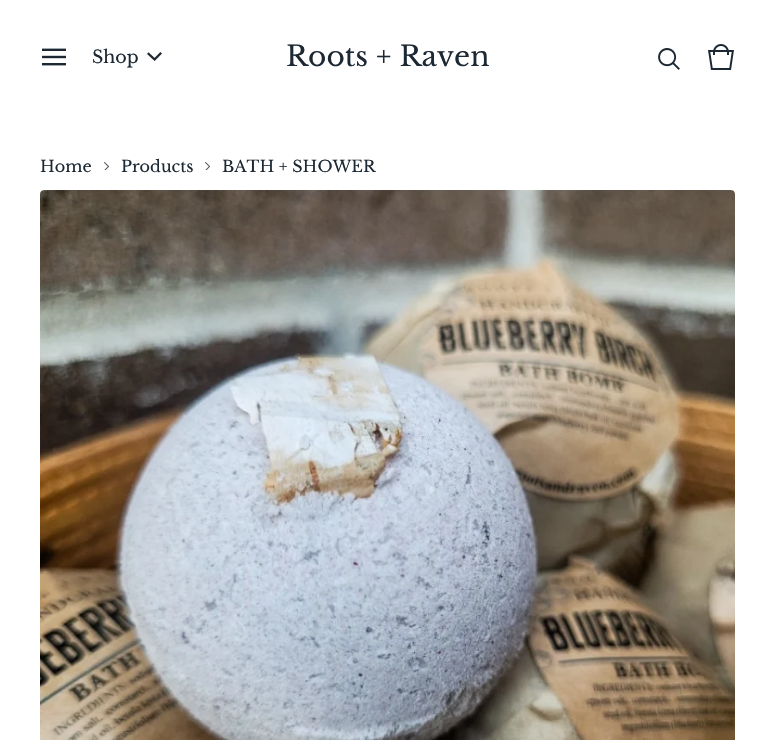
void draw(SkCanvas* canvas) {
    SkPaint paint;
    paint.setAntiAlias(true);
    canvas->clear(0xFFFFFFFF);
    canvas->drawImageRect(SkImages::DeferredFromEncodedData(SkData::MakeFromFileName("img1.png")), SkRect::MakeXYWH(42, 48, 24, 18), SkSamplingOptions());
    SkFont font1(fontMgr->matchFamilyStyle("Libre Baskerville", SkFontStyle::Normal()), 17.5f);
    font1.setSubpixel(true);
    paint.setColor(0xFF1C2833);
    canvas->drawString("Shop", 92, 63, font1, paint);
    canvas->drawImageRect(SkImages::DeferredFromEncodedData(SkData::MakeFromFileName("img2.png")), SkRect::MakeXYWH(147, 52, 15, 9), SkSamplingOptions());
    SkFont font2(fontMgr->matchFamilyStyle("Libre Baskerville", SkFontStyle::Normal()), 28);
    font2.setSubpixel(true);
    canvas->drawString("Roots + Raven", 286, 66, font2, paint);
    canvas->drawImageRect(SkImages::DeferredFromEncodedData(SkData::MakeFromFileName("img3.png")), SkRect::MakeXYWH(658, 48, 22, 22), SkSamplingOptions());
    canvas->drawImageRect(SkImages::DeferredFromEncodedData(SkData::MakeFromFileName("img4.png")), SkRect::MakeXYWH(708, 44, 26, 26), SkSamplingOptions());
    SkFont font3(fontMgr->matchFamilyStyle("Libre Baskerville", SkFontStyle::Normal()), 16);
    font3.setSubpixel(true);
    canvas->drawString("Home", 40, 172, font3, paint);
    canvas->drawImageRect(SkImages::DeferredFromEncodedData(SkData::MakeFromFileName("img5.png")), SkRect::MakeXYWH(104, 162, 5, 8), SkSamplingOptions());
    canvas->drawString("Products", 121, 172, font3, paint);
    canvas->drawImageRect(SkImages::DeferredFromEncodedData(SkData::MakeFromFileName("img5.png")), SkRect::MakeXYWH(205, 162, 5, 8), SkSamplingOptions());
    canvas->drawString("BATH + SHOWER", 222, 172, font3, paint);
    canvas->drawImageRect(SkImages::DeferredFromEncodedData(SkData::MakeFromFileName("img6.png")), SkRect::MakeXYWH(40, 190, 695, 550), SkSamplingOptions());
}
